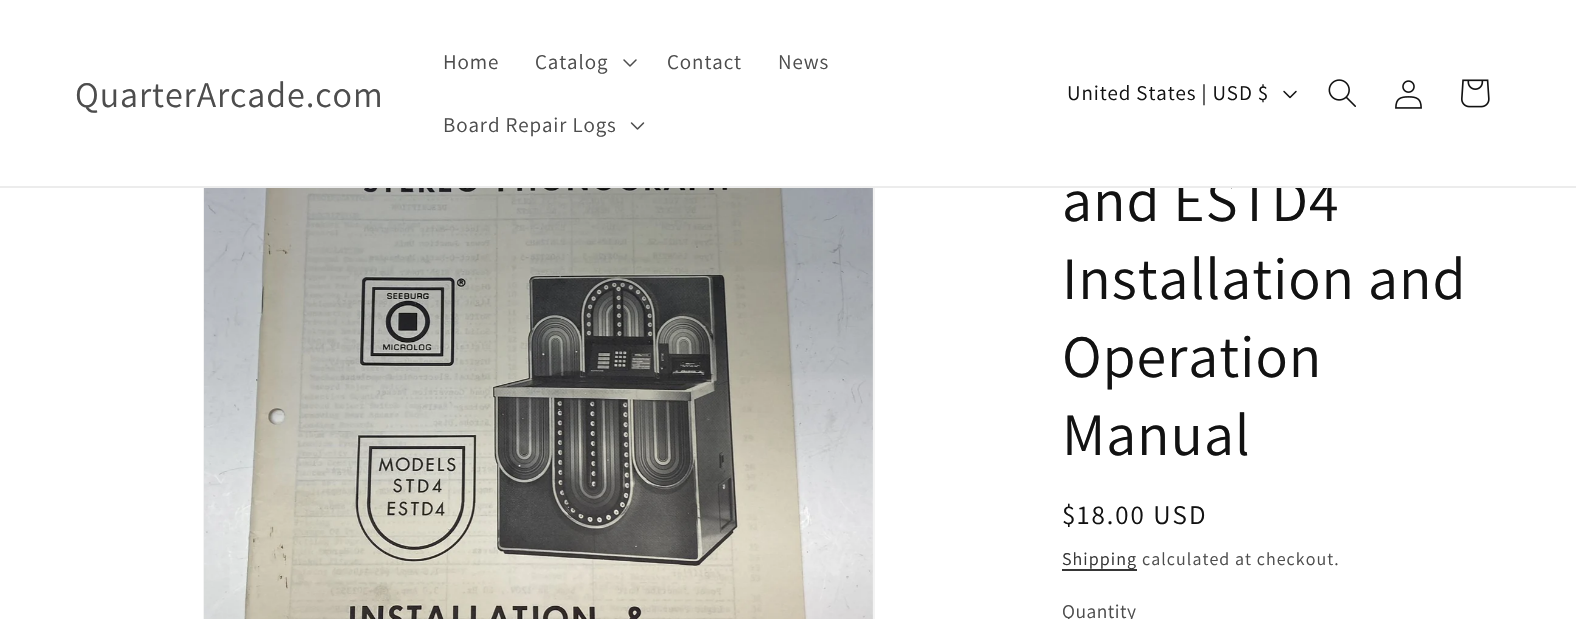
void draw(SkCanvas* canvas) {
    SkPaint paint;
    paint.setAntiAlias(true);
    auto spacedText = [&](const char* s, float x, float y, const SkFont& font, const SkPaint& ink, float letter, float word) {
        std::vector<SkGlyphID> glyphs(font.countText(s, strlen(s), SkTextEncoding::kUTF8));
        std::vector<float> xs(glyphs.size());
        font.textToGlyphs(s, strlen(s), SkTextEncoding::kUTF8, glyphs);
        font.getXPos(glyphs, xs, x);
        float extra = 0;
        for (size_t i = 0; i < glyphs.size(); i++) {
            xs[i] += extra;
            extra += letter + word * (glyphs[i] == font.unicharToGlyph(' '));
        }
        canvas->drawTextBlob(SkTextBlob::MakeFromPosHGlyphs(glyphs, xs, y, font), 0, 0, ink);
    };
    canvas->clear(0xFFFFFFFF);
    paint.setStyle(SkPaint::kStroke_Style);
    paint.setStrokeWidth(2);
    paint.setColor(0xFFF3F3F3);
    canvas->drawRect(SkRect::MakeXYWH(204, 64, 670, 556), paint);
    SkFont font1(fontMgr->matchFamilyStyle("Assistant", SkFontStyle::Normal()), 60);
    font1.setSubpixel(true);
    paint.setStyle(SkPaint::kFill_Style);
    paint.setColor(0xFF121212);
    spacedText("and ESTD4", 1062, 221, font1, paint, 0.9f, 0);
    paint.setColor(0xFFFFFFFF);
    canvas->drawRect(SkRect::MakeXYWH(203, 63, 1129, 123), paint);
    paint.setColor(0xFFECECEC);
    canvas->drawRect(SkRect::MakeXYWH(0, 186, 1576, 2), paint);
    SkFont font2(fontMgr->matchFamilyStyle("Assistant", SkFontStyle::Normal()), 36);
    font2.setSubpixel(true);
    paint.setColor(0xFF4D4D4D);
    spacedText("QuarterArcade.com", 75, 107, font2, paint, 0.9f, 0);
    SkFont font3(fontMgr->matchFamilyStyle("Assistant", SkFontStyle::Normal()), 21);
    font3.setSubpixel(true);
    spacedText("Home", 443, 69, font3, paint, 0.9f, 0);
    spacedText("Catalog", 535, 69, font3, paint, 0.9f, 0);
    canvas->drawImageRect(SkImages::DeferredFromEncodedData(SkData::MakeFromFileName("img1.png")), SkRect::MakeXYWH(623, 59, 14, 8), SkSamplingOptions());
    spacedText("Contact", 667, 69, font3, paint, 0.9f, 0);
    spacedText("News", 778, 69, font3, paint, 0.9f, 0);
    spacedText("Board Repair Logs", 443, 132, font3, paint, 0.9f, 0);
    canvas->drawImageRect(SkImages::DeferredFromEncodedData(SkData::MakeFromFileName("img2.png")), SkRect::MakeXYWH(630, 122, 15, 8), SkSamplingOptions());
    paint.setColor(0xFF121212);
    spacedText("United States | USD $", 1067, 100, font3, paint, 0.9f, 0);
    canvas->drawImageRect(SkImages::DeferredFromEncodedData(SkData::MakeFromFileName("img3.png")), SkRect::MakeXYWH(1283, 90, 14, 9), SkSamplingOptions());
    canvas->drawImageRect(SkImages::DeferredFromEncodedData(SkData::MakeFromFileName("img4.png")), SkRect::MakeXYWH(1328, 79, 28, 28), SkSamplingOptions());
    canvas->drawImageRect(SkImages::DeferredFromEncodedData(SkData::MakeFromFileName("img5.png")), SkRect::MakeXYWH(1395, 80, 27, 29), SkSamplingOptions());
    canvas->drawImageRect(SkImages::DeferredFromEncodedData(SkData::MakeFromFileName("img6.png")), SkRect::MakeXYWH(1461, 79, 29, 29), SkSamplingOptions());
    canvas->drawImageRect(SkImages::DeferredFromEncodedData(SkData::MakeFromFileName("img7.png")), SkRect::MakeXYWH(204, 188, 669, 431), SkSamplingOptions());
    spacedText("Installation and", 1062, 299, font1, paint, 0.9f, 0);
    spacedText("Operation", 1062, 377, font1, paint, 0.9f, 0);
    spacedText("Manual", 1062, 455, font1, paint, 0.9f, 0);
    SkFont font4(fontMgr->matchFamilyStyle("Assistant", SkFontStyle::Normal()), 27);
    font4.setSubpixel(true);
    spacedText("$18.00 USD", 1062, 524, font4, paint, 2, 0);
    paint.setColor(0xFF363636);
    canvas->drawRect(SkRect::MakeXYWH(1062, 569, 75, 2), paint);
    SkFont font5(fontMgr->matchFamilyStyle("Assistant", SkFontStyle::Normal()), 18);
    font5.setSubpixel(true);
    paint.setColor(0xFF353535);
    spacedText("Shipping", 1062, 565, font5, paint, 1.05f, 0);
    paint.setColor(0xFF4D4D4D);
    spacedText("calculated at checkout.", 1142, 565, font5, paint, 1.05f, 0);
    SkFont font6(fontMgr->matchFamilyStyle("Assistant", SkFontStyle::Normal()), 19.5f);
    font6.setSubpixel(true);
    spacedText("Quantity", 1062, 618, font6, paint, 0.5f, 0);
}
